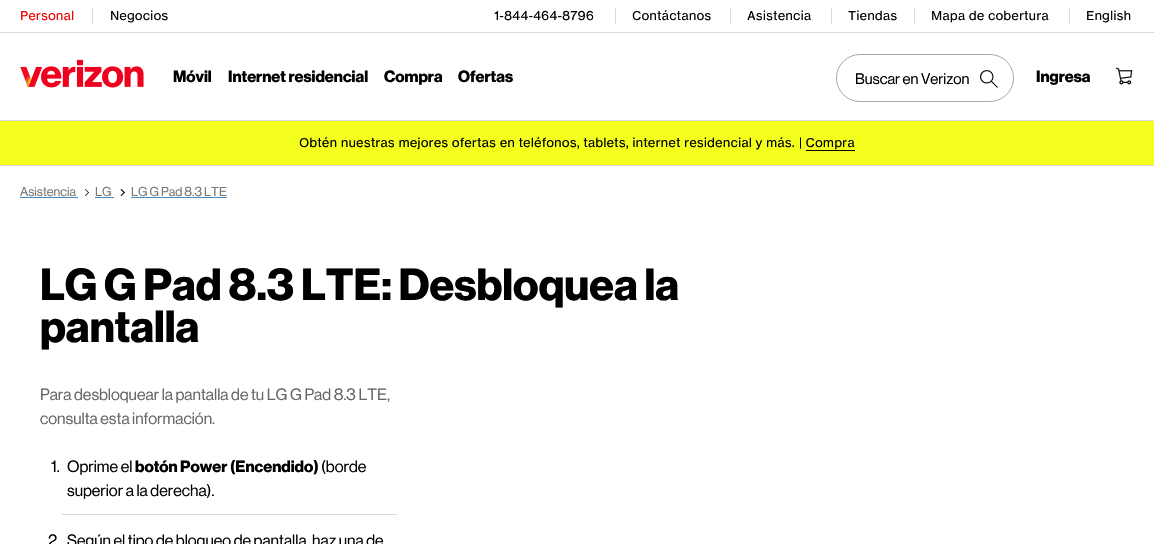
void draw(SkCanvas* canvas) {
    SkPaint paint;
    paint.setAntiAlias(true);
    canvas->clear(0xFFFFFFFF);
    paint.setColor(0xFFD8DADA);
    canvas->drawRect(SkRect::MakeXYWH(0, 165, 1154, 1), paint);
    SkFont font1(fontMgr->matchFamilyStyle("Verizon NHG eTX", SkFontStyle::Normal()), 12);
    font1.setSubpixel(true);
    paint.setColor(0xFFEE0000);
    canvas->drawString("Personal", 20, 20, font1, paint);
    paint.setColor(0xFFD8DADA);
    canvas->drawRect(SkRect::MakeXYWH(92, 8, 1, 16), paint);
    paint.setColor(0xFF000000);
    canvas->drawString("Negocios", 110, 20, font1, paint);
    canvas->drawString("1-844-464-8796", 494, 20, font1, paint);
    paint.setColor(0xFFD8DADA);
    canvas->drawRect(SkRect::MakeXYWH(615, 8, 1, 16), paint);
    paint.setColor(0xFF000000);
    canvas->drawString("Contáctanos", 632, 20, font1, paint);
    paint.setColor(0xFFD8DADA);
    canvas->drawRect(SkRect::MakeXYWH(730, 8, 1, 16), paint);
    paint.setColor(0xFF000000);
    canvas->drawString("Asistencia", 747, 20, font1, paint);
    paint.setColor(0xFFD8DADA);
    canvas->drawRect(SkRect::MakeXYWH(831, 8, 1, 16), paint);
    paint.setColor(0xFF000000);
    canvas->drawString("Tiendas", 848, 20, font1, paint);
    paint.setColor(0xFFD8DADA);
    canvas->drawRect(SkRect::MakeXYWH(914, 8, 1, 16), paint);
    paint.setColor(0xFF000000);
    canvas->drawString("Mapa de cobertura", 931, 20, font1, paint);
    paint.setColor(0xFFD8DADA);
    canvas->drawRect(SkRect::MakeXYWH(1069, 8, 1, 16), paint);
    paint.setColor(0xFF000000);
    canvas->drawString("English", 1086, 20, font1, paint);
    canvas->drawImageRect(SkImages::DeferredFromEncodedData(SkData::MakeFromFileName("img1.png")), SkRect::MakeXYWH(20, 59, 124, 29), SkSamplingOptions());
    SkFont font2(fontMgr->matchFamilyStyle("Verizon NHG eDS", SkFontStyle::Bold()), 16);
    font2.setSubpixel(true);
    canvas->drawString("Móvil", 173, 82, font2, paint);
    canvas->drawString("Internet residencial", 228, 82, font2, paint);
    canvas->drawString("Compra", 384, 82, font2, paint);
    canvas->drawString("Ofertas", 458, 82, font2, paint);
    canvas->drawImageRect(SkImages::DeferredFromEncodedData(SkData::MakeFromFileName("img2.png")), SkRect::MakeXYWH(980, 70, 18, 18), SkSamplingOptions());
    paint.setStyle(SkPaint::kStroke_Style);
    paint.setStrokeWidth(1);
    paint.setColor(0xFFA7A7A7);
    canvas->drawRoundRect(SkRect::MakeXYWH(836.5f, 54.5f, 177, 47), 23.5f, 23.5f, paint);
    SkFont font3(fontMgr->matchFamilyStyle("Verizon NHG eDS", SkFontStyle::Normal()), 15);
    font3.setSubpixel(true);
    paint.setStyle(SkPaint::kFill_Style);
    paint.setColor(0xFF000000);
    canvas->drawString("Buscar en Verizon", 855, 84, font3, paint);
    canvas->drawString("Ingresa", 1036, 82, font2, paint);
    canvas->drawImageRect(SkImages::DeferredFromEncodedData(SkData::MakeFromFileName("img3.png")), SkRect::MakeXYWH(1115, 67, 18, 18), SkSamplingOptions());
    paint.setColor(0xFFD8DADA);
    canvas->drawRect(SkRect::MakeXYWH(0, 32, 1154, 1), paint);
    paint.setColor(0xFFF5FF1E);
    canvas->drawRect(SkRect::MakeXYWH(0, 121, 1154, 44), paint);
    paint.setColor(0xFFD8DADA);
    canvas->drawRect(SkRect::MakeXYWH(0, 120, 1154, 1), paint);
    paint.setColor(0xFF000000);
    canvas->drawString("Obtén nuestras mejores ofertas en teléfonos, tablets, internet residencial y más.", 299, 147, font1, paint);
    canvas->drawString("| Compra", 799, 147, font1, paint);
    canvas->drawRect(SkRect::MakeXYWH(806, 150, 49, 1), paint);
    SkFont font4(fontMgr->matchFamilyStyle("Verizon NHG eDS", SkFontStyle::Normal()), 12.75f);
    font4.setSubpixel(true);
    paint.setColor(0xFF747676);
    canvas->drawString("Asistencia", 20, 196, font4, paint);
    paint.setColor(0xFF428BCA);
    canvas->drawRect(SkRect::MakeXYWH(20, 197, 58, 1), paint);
    paint.setColor(0xFF747676);
    canvas->drawString("LG", 95, 196, font4, paint);
    paint.setColor(0xFF428BCA);
    canvas->drawRect(SkRect::MakeXYWH(95, 197, 19, 1), paint);
    paint.setColor(0xFF000000);
    canvas->drawPath(SkPathBuilder().moveTo(85, 189.5f).lineTo(85.5f, 189).lineTo(89, 192.5f).lineTo(88.5f, 193).close().detach(), paint);
    canvas->drawPath(SkPathBuilder().moveTo(85, 195.5f).lineTo(88.5f, 192).lineTo(89, 192.5f).lineTo(85.5f, 196).close().moveTo(120.5f, 189.5f).lineTo(121.5f, 189).lineTo(125, 192.5f).lineTo(124, 193).close().detach(), paint);
    canvas->drawPath(SkPathBuilder().moveTo(120.5f, 195.5f).lineTo(124, 192).lineTo(125, 192.5f).lineTo(121.5f, 196).close().detach(), paint);
    paint.setColor(0xFF747676);
    canvas->drawString("LG G Pad 8.3 LTE", 131, 196, font4, paint);
    paint.setColor(0xFF428BCA);
    canvas->drawRect(SkRect::MakeXYWH(131, 197, 96, 1), paint);
    SkFont font5(fontMgr->matchFamilyStyle("Verizon NHG eDS", SkFontStyle::Bold()), 44);
    font5.setSubpixel(true);
    paint.setColor(0xFF000000);
    canvas->drawString("LG G Pad 8.3 LTE: Desbloquea la", 40, 300, font5, paint);
    canvas->drawString("pantalla", 40, 342, font5, paint);
    SkFont font6(fontMgr->matchFamilyStyle("Verizon NHG eDS", SkFontStyle::Normal()), 16);
    font6.setSubpixel(true);
    paint.setColor(0xFF666666);
    canvas->drawString("Para desbloquear la pantalla de tu LG G Pad 8.3 LTE,", 40, 400, font6, paint);
    canvas->drawString("consulta esta información.", 40, 424, font6, paint);
    paint.setColor(0xFFD8DADA);
    canvas->drawRect(SkRect::MakeXYWH(62, 514, 335, 1), paint);
    paint.setColor(0xFF000000);
    canvas->drawString("1.", 51, 472, font6, paint);
    canvas->drawString("Oprime el", 67, 472, font6, paint);
    canvas->drawString("botón Power (Encendido)", 135, 472, font2, paint);
    canvas->drawString("(borde", 321, 472, font6, paint);
    canvas->drawString("superior a la derecha).", 67, 496, font6, paint);
    canvas->drawString("2", 48, 546, font6, paint);
    canvas->drawString("Según el tipo de bloqueo de pantalla, haz una de", 67, 546, font6, paint);
}
